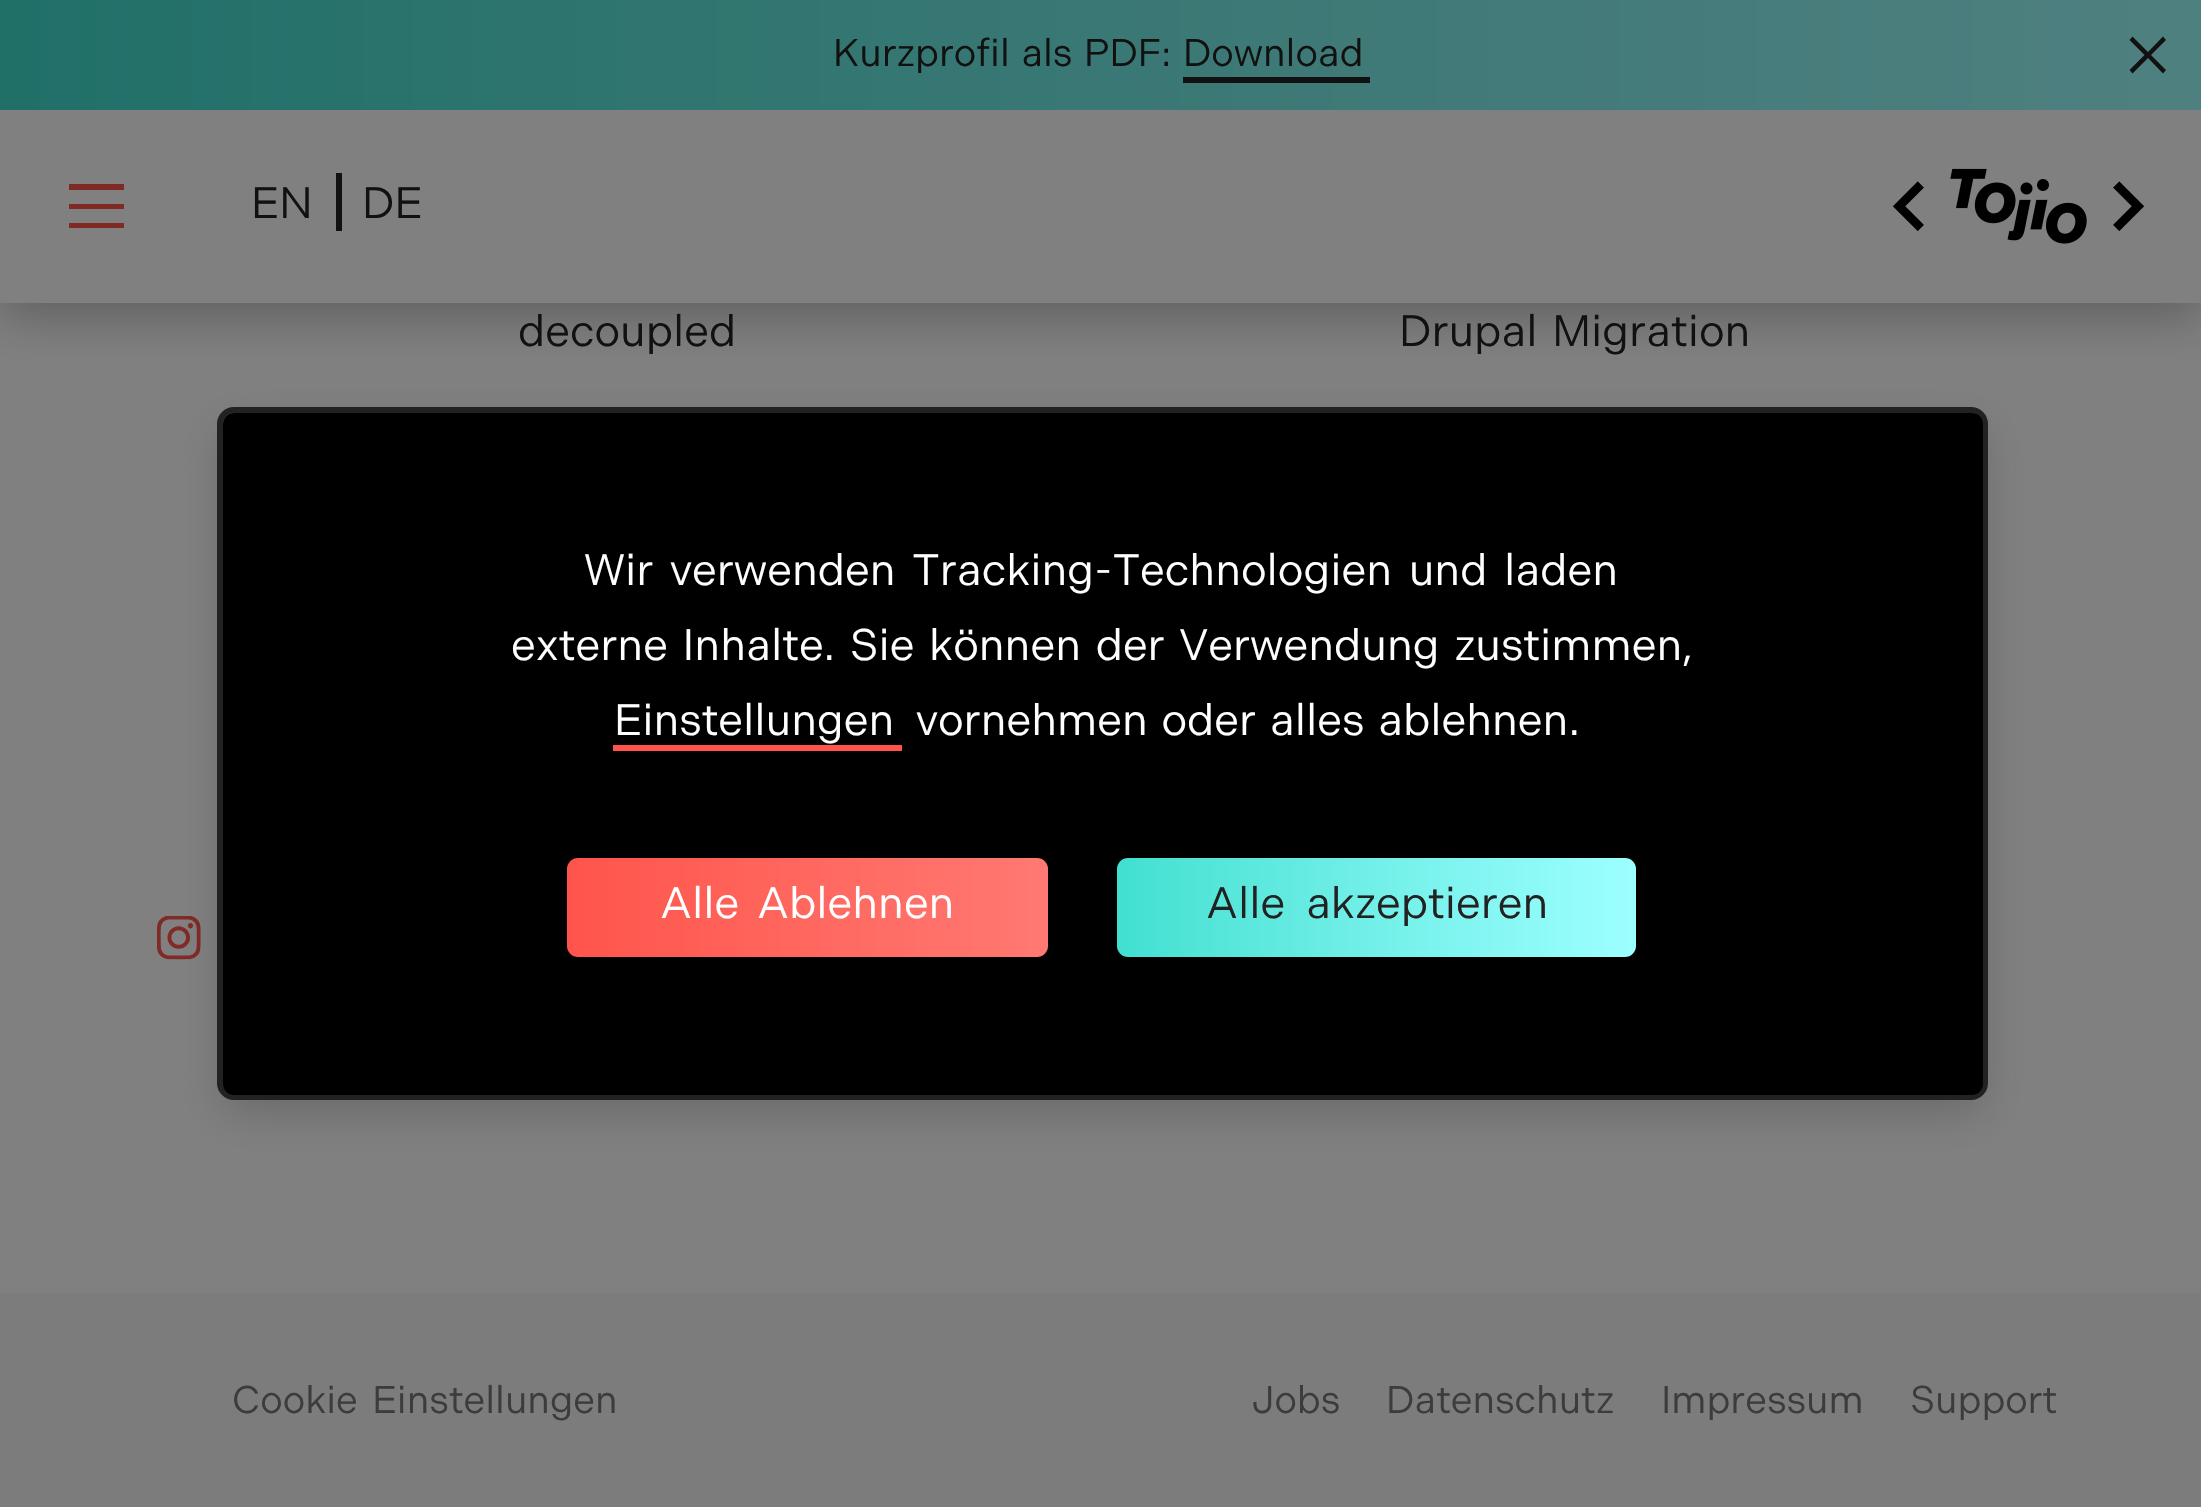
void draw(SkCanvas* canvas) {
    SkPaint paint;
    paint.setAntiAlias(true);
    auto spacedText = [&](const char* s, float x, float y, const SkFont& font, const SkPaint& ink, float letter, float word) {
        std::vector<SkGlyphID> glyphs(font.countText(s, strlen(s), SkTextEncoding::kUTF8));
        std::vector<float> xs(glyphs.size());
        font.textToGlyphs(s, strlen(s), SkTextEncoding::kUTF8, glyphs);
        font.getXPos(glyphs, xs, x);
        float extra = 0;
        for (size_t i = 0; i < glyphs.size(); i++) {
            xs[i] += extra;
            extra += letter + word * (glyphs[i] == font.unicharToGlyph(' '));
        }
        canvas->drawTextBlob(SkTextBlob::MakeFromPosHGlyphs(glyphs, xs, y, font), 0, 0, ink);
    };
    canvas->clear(0xFF808080);
    paint.setColor(0x4D1A1A1A);
    paint.setMaskFilter(SkMaskFilter::MakeBlur(kNormal_SkBlurStyle, 22));
    canvas->drawRect(SkRect::MakeXYWH(0, 17, 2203, 302), paint);
    paint.setMaskFilter(nullptr);
    {
        const SkColor colors[] = {0xFF207068, 0xFF28726C, 0xFF30756F, 0xFF367773, 0xFF3D7976, 0xFF437B7A, 0xFF497E7D, 0xFF4F8080};
        const float stops[] = {0, 0.14f, 0.29f, 0.43f, 0.57f, 0.71f, 0.86f, 1};
        const SkPoint ends[] = {{0, 55}, {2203, 55}};
        paint.setShader(SkGradientShader::MakeLinear(ends, colors, stops, 8, SkTileMode::kClamp));
        paint.setAlpha(255);
    }
    canvas->drawRect(SkRect::MakeXYWH(0, 0, 2201, 110), paint);
    SkFont font1(fontMgr->matchFamilyStyle("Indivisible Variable", SkFontStyle::Normal()), 38.5f);
    font1.setSubpixel(true);
    paint.setShader(nullptr);
    paint.setColor(0xFF111111);
    spacedText("Kurzprofil als PDF:", 833, 66, font1, paint, 0, 3);
    canvas->drawString("Download", 1183, 66, font1, paint);
    canvas->drawRect(SkRect::MakeXYWH(1183, 77, 187, 6), paint);
    canvas->drawPath(SkPathBuilder(SkPathFillType::kEvenOdd).moveTo(2148, 52).lineTo(2163, 36.5f).lineTo(2166, 40).lineTo(2151, 55).lineTo(2166, 70).lineTo(2163, 73.5f).lineTo(2148, 58).lineTo(2132.5f, 73.5f).lineTo(2129.5f, 70).lineTo(2144.5f, 55).lineTo(2129.5f, 40).lineTo(2132.5f, 36.5f).close().detach(), paint);
    paint.setColor(0xFF808080);
    canvas->drawRect(SkRect::MakeXYWH(0, 110, 2201, 193), paint);
    paint.setColor(0xFF802A26);
    canvas->drawPath(SkPathBuilder(SkPathFillType::kEvenOdd).moveTo(69, 184).lineTo(124, 184).lineTo(124, 190).lineTo(69, 190).close().moveTo(69, 204).lineTo(124, 204).lineTo(124, 209).lineTo(69, 209).close().moveTo(69, 223).lineTo(124, 223).lineTo(124, 228).lineTo(69, 228).close().detach(), paint);
    SkFont font2(fontMgr->matchFamilyStyle("Indivisible Variable", SkFontStyle::Normal()), 44);
    font2.setSubpixel(true);
    paint.setColor(0xFF111111);
    canvas->drawString("EN", 251, 218, font2, paint);
    canvas->drawRect(SkRect::MakeXYWH(336, 173, 6, 58), paint);
    canvas->drawString("DE", 362, 218, font2, paint);
    canvas->drawImageRect(SkImages::DeferredFromEncodedData(SkData::MakeFromFileName("img1.png")), SkRect::MakeXYWH(1892, 168, 253, 76), SkSamplingOptions());
    canvas->drawString("decoupled", 518, 346, font2, paint);
    spacedText("Drupal Migration", 1399, 346, font2, paint, 0, 5);
    canvas->drawImageRect(SkImages::DeferredFromEncodedData(SkData::MakeFromFileName("img2.png")), SkRect::MakeXYWH(157, 916, 44, 44), SkSamplingOptions());
    paint.setColor(0xFF7C7C7C);
    canvas->drawRect(SkRect::MakeXYWH(0, 1293, 2201, 214), paint);
    paint.setColor(0xFF3C3C3C);
    spacedText("Cookie Einstellungen", 232, 1413, font1, paint, 0, 6);
    canvas->drawString("Jobs", 1251, 1413, font1, paint);
    canvas->drawString("Datenschutz", 1386, 1413, font1, paint);
    canvas->drawString("Impressum", 1661, 1413, font1, paint);
    canvas->drawString("Support", 1910, 1413, font1, paint);
    paint.setColor(0x4D333333);
    paint.setMaskFilter(SkMaskFilter::MakeBlur(kNormal_SkBlurStyle, 22));
    canvas->drawRoundRect(SkRect::MakeXYWH(223, 429, 1760, 682), 11, 11, paint);
    paint.setMaskFilter(nullptr);
    paint.setStyle(SkPaint::kStroke_Style);
    paint.setStrokeWidth(6);
    paint.setColor(0xFF222222);
    canvas->drawRoundRect(SkRect::MakeXYWH(220, 410, 1765, 687), 14, 14, paint);
    paint.setStyle(SkPaint::kFill_Style);
    paint.setColor(0xFF000000);
    canvas->drawRoundRect(SkRect::MakeXYWH(223, 413, 1760, 682), 11, 11, paint);
    paint.setColor(0xFFFFFFFF);
    spacedText("Wir verwenden Tracking-Technologien und laden", 584, 585, font2, paint, 0, 7);
    spacedText("externe Inhalte. Sie können der Verwendung zustimmen,", 511, 660, font2, paint, 0, 5);
    canvas->drawString("Einstellungen", 614, 735, font2, paint);
    paint.setColor(0xFFFF544B);
    canvas->drawRect(SkRect::MakeXYWH(613, 745, 289, 6), paint);
    paint.setColor(0xFFFFFFFF);
    spacedText("vornehmen oder alles ablehnen.", 916, 735, font2, paint, 0, 4);
    {
        const SkColor colors[] = {0xFFFF544B, 0xFFFF5A51, 0xFFFF5F56, 0xFFFF655C, 0xFFFF6A62, 0xFFFF6F67, 0xFFFF746D, 0xFFFF7972};
        const float stops[] = {0, 0.14f, 0.29f, 0.43f, 0.57f, 0.71f, 0.86f, 1};
        const SkPoint ends[] = {{567, 907}, {1048, 907}};
        paint.setShader(SkGradientShader::MakeLinear(ends, colors, stops, 8, SkTileMode::kClamp));
        paint.setAlpha(255);
    }
    canvas->drawRoundRect(SkRect::MakeXYWH(567, 858, 481, 99), 11, 11, paint);
    paint.setShader(nullptr);
    paint.setColor(0xFFFFFFFF);
    spacedText("Alle Ablehnen", 660, 918, font2, paint, 0, 8);
    {
        const SkColor colors[] = {0xFF40E0D0, 0xFF50E4D7, 0xFF5FE9DE, 0xFF6CEDE5, 0xFF79F2EC, 0xFF85F6F3, 0xFF91FBF9, 0xFF9DFFFF};
        const float stops[] = {0, 0.14f, 0.29f, 0.43f, 0.57f, 0.71f, 0.86f, 1};
        const SkPoint ends[] = {{1117, 907}, {1636, 907}};
        paint.setShader(SkGradientShader::MakeLinear(ends, colors, stops, 8, SkTileMode::kClamp));
        paint.setAlpha(255);
    }
    canvas->drawRoundRect(SkRect::MakeXYWH(1117, 858, 519, 99), 11, 11, paint);
    paint.setShader(nullptr);
    paint.setColor(0xFF222222);
    spacedText("Alle akzeptieren", 1206, 918, font2, paint, 0, 11);
}
